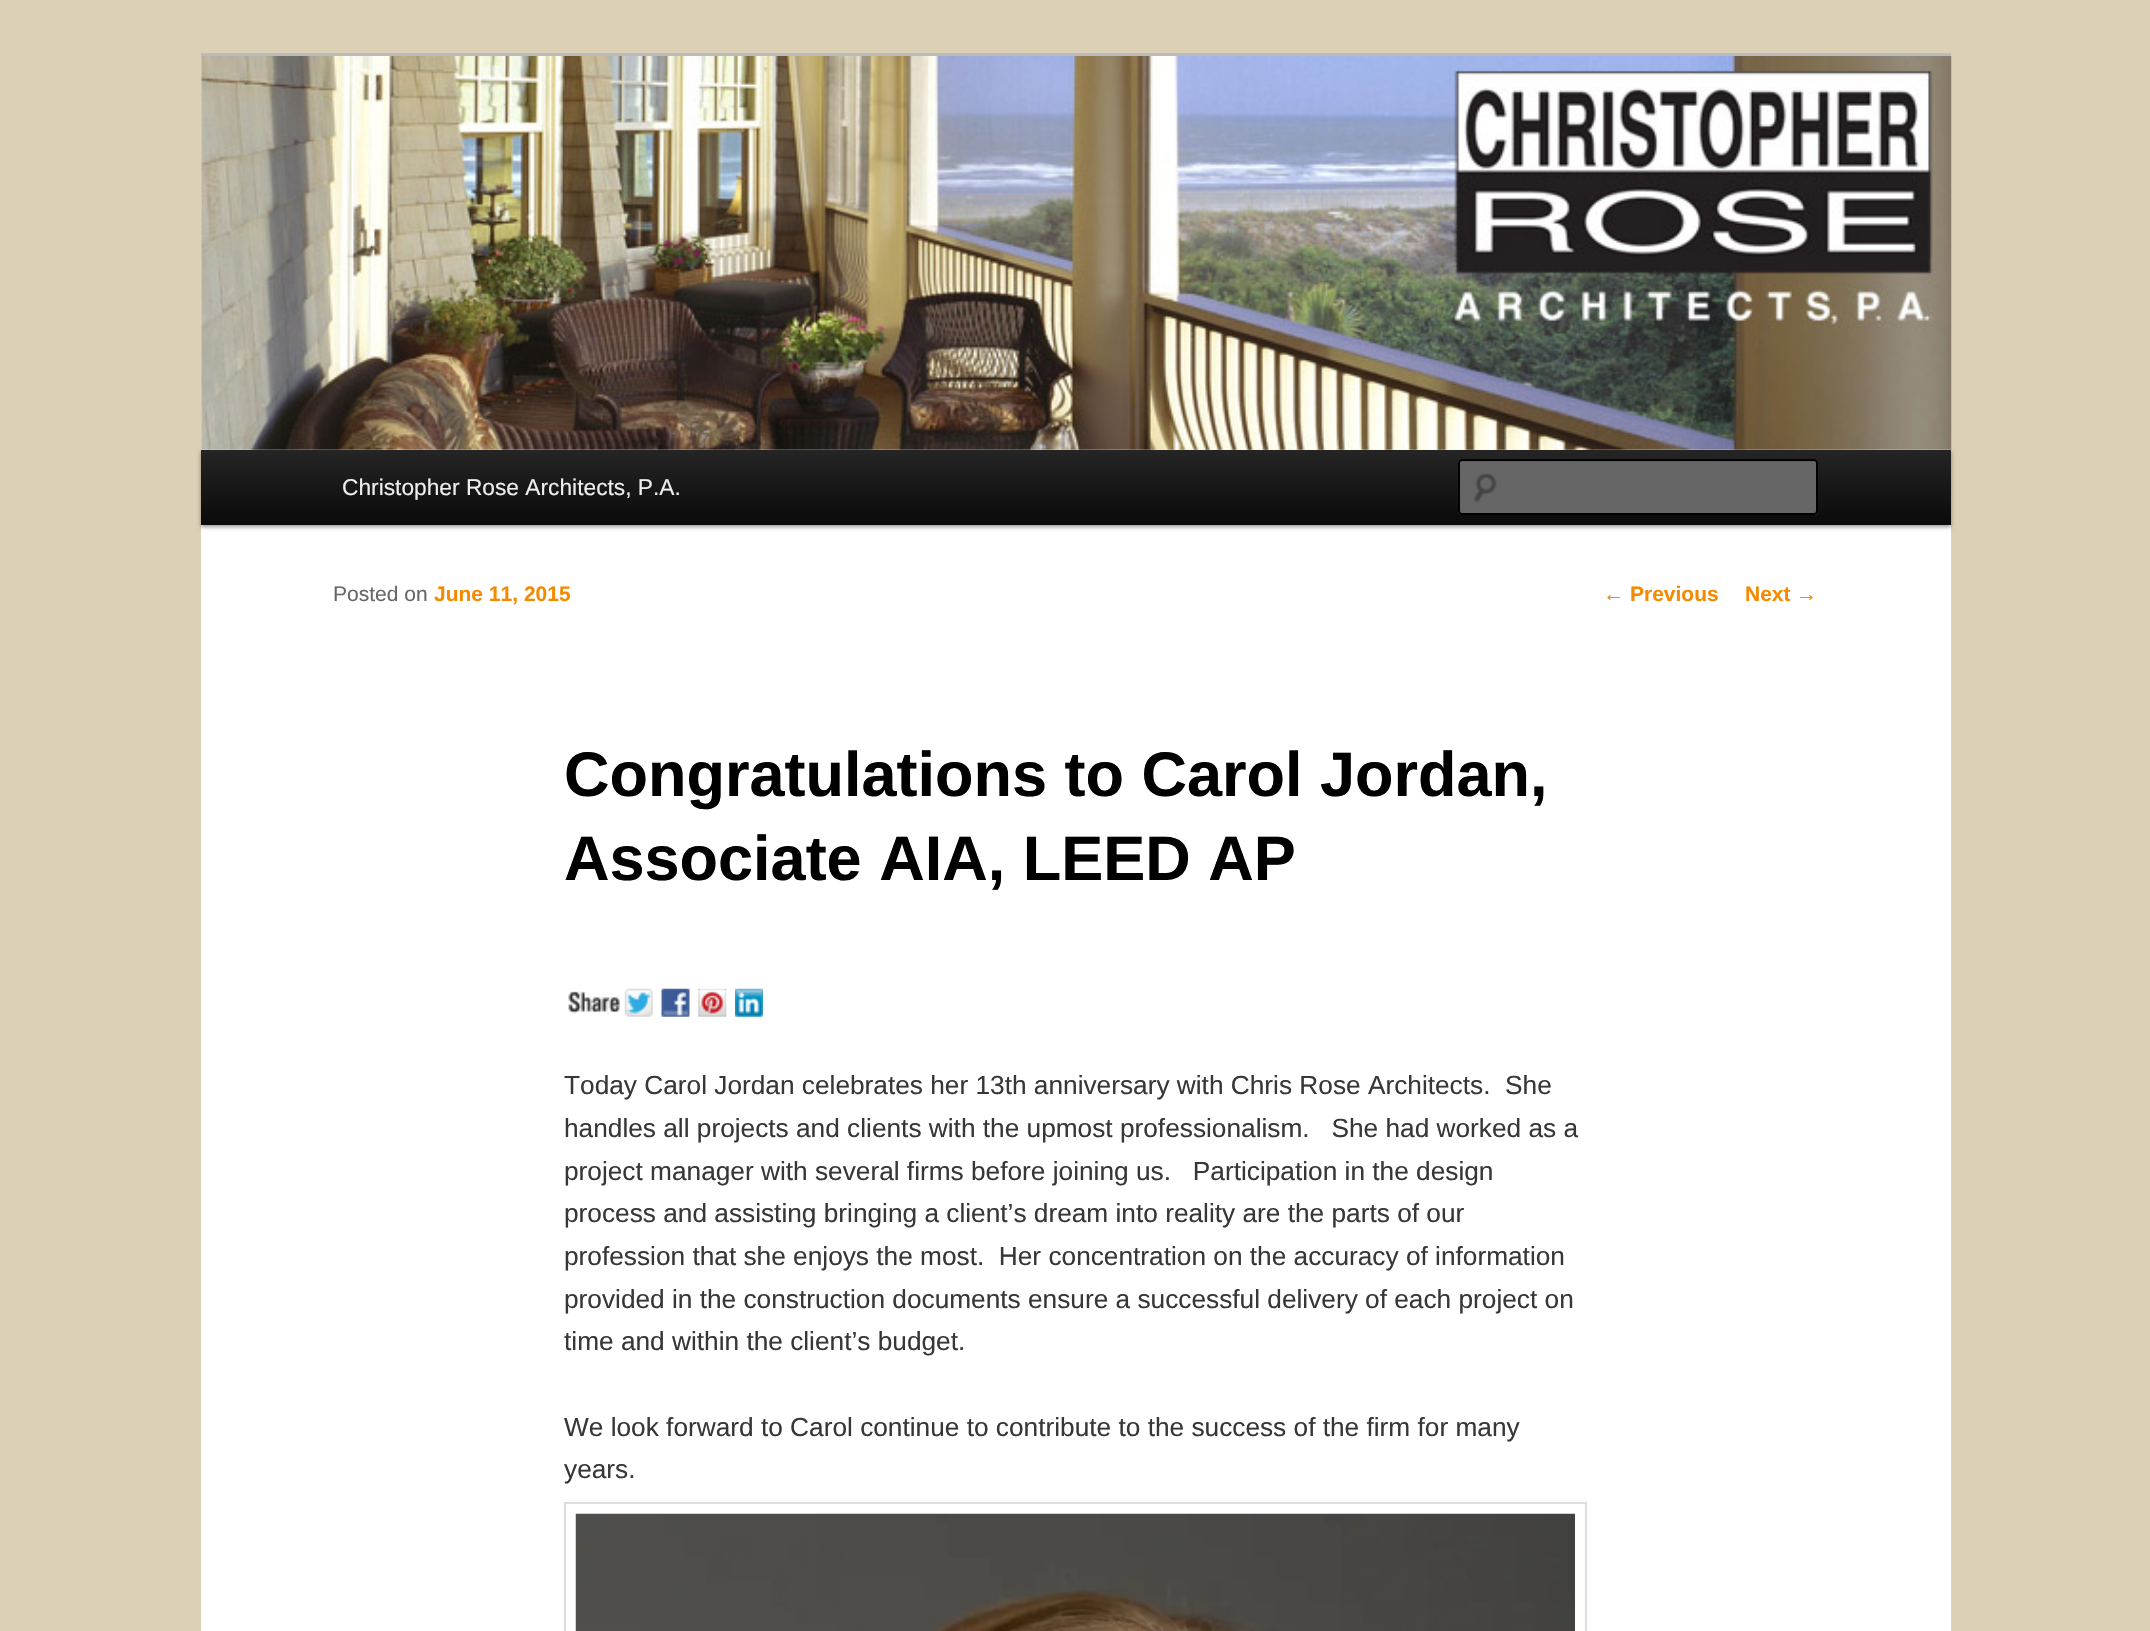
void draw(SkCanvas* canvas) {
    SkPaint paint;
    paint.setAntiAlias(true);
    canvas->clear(0xFFDCD0B6);
    paint.setColor(0xFFFFFFFF);
    canvas->drawRect(SkRect::MakeXYWH(201, 57, 1750, 1574), paint);
    paint.setColor(0xFFBBBBBB);
    canvas->drawRect(SkRect::MakeXYWH(201, 53, 1750, 4), paint);
    paint.setColor(0x66000000);
    paint.setMaskFilter(SkMaskFilter::MakeBlur(kNormal_SkBlurStyle, 2));
    canvas->drawRect(SkRect::MakeXYWH(201, 452, 1750, 75), paint);
    paint.setMaskFilter(nullptr);
    canvas->drawImageRect(SkImages::DeferredFromEncodedData(SkData::MakeFromFileName("img1.png")), SkRect::MakeXYWH(201, 56, 1751, 394), SkSamplingOptions());
    {
        const SkColor colors[] = {0xFF252525, 0xFF0A0A0A};
        const float stops[] = {0, 1};
        const SkPoint ends[] = {{1076, 450}, {1076, 525}};
        paint.setShader(SkGradientShader::MakeLinear(ends, colors, stops, 2, SkTileMode::kClamp));
        paint.setAlpha(255);
    }
    canvas->drawRect(SkRect::MakeXYWH(201, 450, 1750, 75), paint);
    SkFont font1(fontMgr->matchFamilyStyle("Liberation Sans", SkFontStyle::Normal()), 22.75f);
    font1.setSubpixel(true);
    paint.setShader(nullptr);
    paint.setColor(0xFFEEEEEE);
    canvas->drawString("Christopher Rose Architects, P.A.", 342, 495, font1, paint);
    paint.setColor(0xFF666666);
    canvas->drawRoundRect(SkRect::MakeXYWH(1458, 459, 360, 56), 4, 4, paint);
    canvas->drawImageRect(SkImages::DeferredFromEncodedData(SkData::MakeFromFileName("img2.png")), SkRect::MakeXYWH(1473, 473, 24, 30), SkSamplingOptions());
    paint.setColor(0xFF5C5C5C);
    canvas->drawPath(SkPathBuilder().moveTo(1461, 462).lineTo(1815, 462).cubicTo(1816, 462, 1816, 463, 1816, 464).lineTo(1816, 513).lineTo(1817, 511).lineTo(1817, 462).cubicTo(1817, 461, 1816, 460, 1815, 460).lineTo(1461, 460).cubicTo(1460, 461, 1460, 463, 1460, 464).cubicTo(1460, 463, 1460, 462, 1461, 462).close().detach(), paint);
    paint.setStyle(SkPaint::kStroke_Style);
    paint.setStrokeWidth(2);
    paint.setColor(0xFF000000);
    canvas->drawRoundRect(SkRect::MakeXYWH(1459, 460, 358, 54), 3, 3, paint);
    SkFont font2(fontMgr->matchFamilyStyle("Liberation Sans", SkFontStyle::Normal()), 21);
    font2.setSubpixel(true);
    paint.setStyle(SkPaint::kFill_Style);
    paint.setColor(0xFF666666);
    canvas->drawString("Posted on", 333, 601, font2, paint);
    SkFont font3(fontMgr->matchFamilyStyle("Liberation Sans", SkFontStyle::Bold()), 21);
    font3.setSubpixel(true);
    paint.setColor(0xFFF38A01);
    canvas->drawString("June 11, 2015", 434, 601, font3, paint);
    SkFont font4(fontMgr->matchFamilyStyle("Liberation Sans", SkFontStyle::Bold()), 63);
    font4.setSubpixel(true);
    paint.setColor(0xFF000000);
    canvas->drawString("Congratulations to Carol Jordan,", 564, 796, font4, paint);
    canvas->drawString("Associate AIA, LEED AP", 564, 880, font4, paint);
    canvas->drawImageRect(SkImages::DeferredFromEncodedData(SkData::MakeFromFileName("img3.png")), SkRect::MakeXYWH(568, 991, 53, 23), SkSamplingOptions());
    canvas->drawImageRect(SkImages::DeferredFromEncodedData(SkData::MakeFromFileName("img4.png")), SkRect::MakeXYWH(624, 988, 29, 29), SkSamplingOptions());
    canvas->drawImageRect(SkImages::DeferredFromEncodedData(SkData::MakeFromFileName("img5.png")), SkRect::MakeXYWH(661, 988, 29, 29), SkSamplingOptions());
    canvas->drawImageRect(SkImages::DeferredFromEncodedData(SkData::MakeFromFileName("img6.png")), SkRect::MakeXYWH(698, 988, 29, 29), SkSamplingOptions());
    canvas->drawImageRect(SkImages::DeferredFromEncodedData(SkData::MakeFromFileName("img7.png")), SkRect::MakeXYWH(735, 988, 28, 29), SkSamplingOptions());
    SkFont font5(fontMgr->matchFamilyStyle("Liberation Sans", SkFontStyle::Normal()), 26.25f);
    font5.setSubpixel(true);
    paint.setColor(0xFF373737);
    canvas->drawString("Today Carol Jordan celebrates her 13th anniversary with Chris Rose Architects.  She", 564, 1094, font5, paint);
    canvas->drawString("handles all projects and clients with the upmost professionalism.   She had worked as a", 564, 1137, font5, paint);
    canvas->drawString("project manager with several firms before joining us.   Participation in the design", 564, 1180, font5, paint);
    canvas->drawString("process and assisting bringing a client’s dream into reality are the parts of our", 564, 1222, font5, paint);
    canvas->drawString("profession that she enjoys the most.  Her concentration on the accuracy of information", 564, 1265, font5, paint);
    canvas->drawString("provided in the construction documents ensure a successful delivery of each project on", 564, 1308, font5, paint);
    canvas->drawString("time and within the client’s budget.", 564, 1350, font5, paint);
    canvas->drawString("We look forward to Carol continue to contribute to the success of the firm for many", 564, 1436, font5, paint);
    canvas->drawString("years.", 564, 1478, font5, paint);
    paint.setStyle(SkPaint::kStroke_Style);
    paint.setColor(0xFFDDDDDD);
    canvas->drawRect(SkRect::MakeXYWH(565, 1503, 1021, 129), paint);
    canvas->drawImageRect(SkImages::DeferredFromEncodedData(SkData::MakeFromFileName("img8.png")), SkRect::MakeXYWH(575, 1513, 1000, 118), SkSamplingOptions());
    paint.setStyle(SkPaint::kFill_Style);
    paint.setColor(0xFFF38A01);
    canvas->drawString("←", 1603, 601, font2, paint);
    canvas->drawString("Previous", 1630, 601, font3, paint);
    canvas->drawString("Next", 1745, 601, font3, paint);
    canvas->drawString("→", 1796, 601, font2, paint);
}
